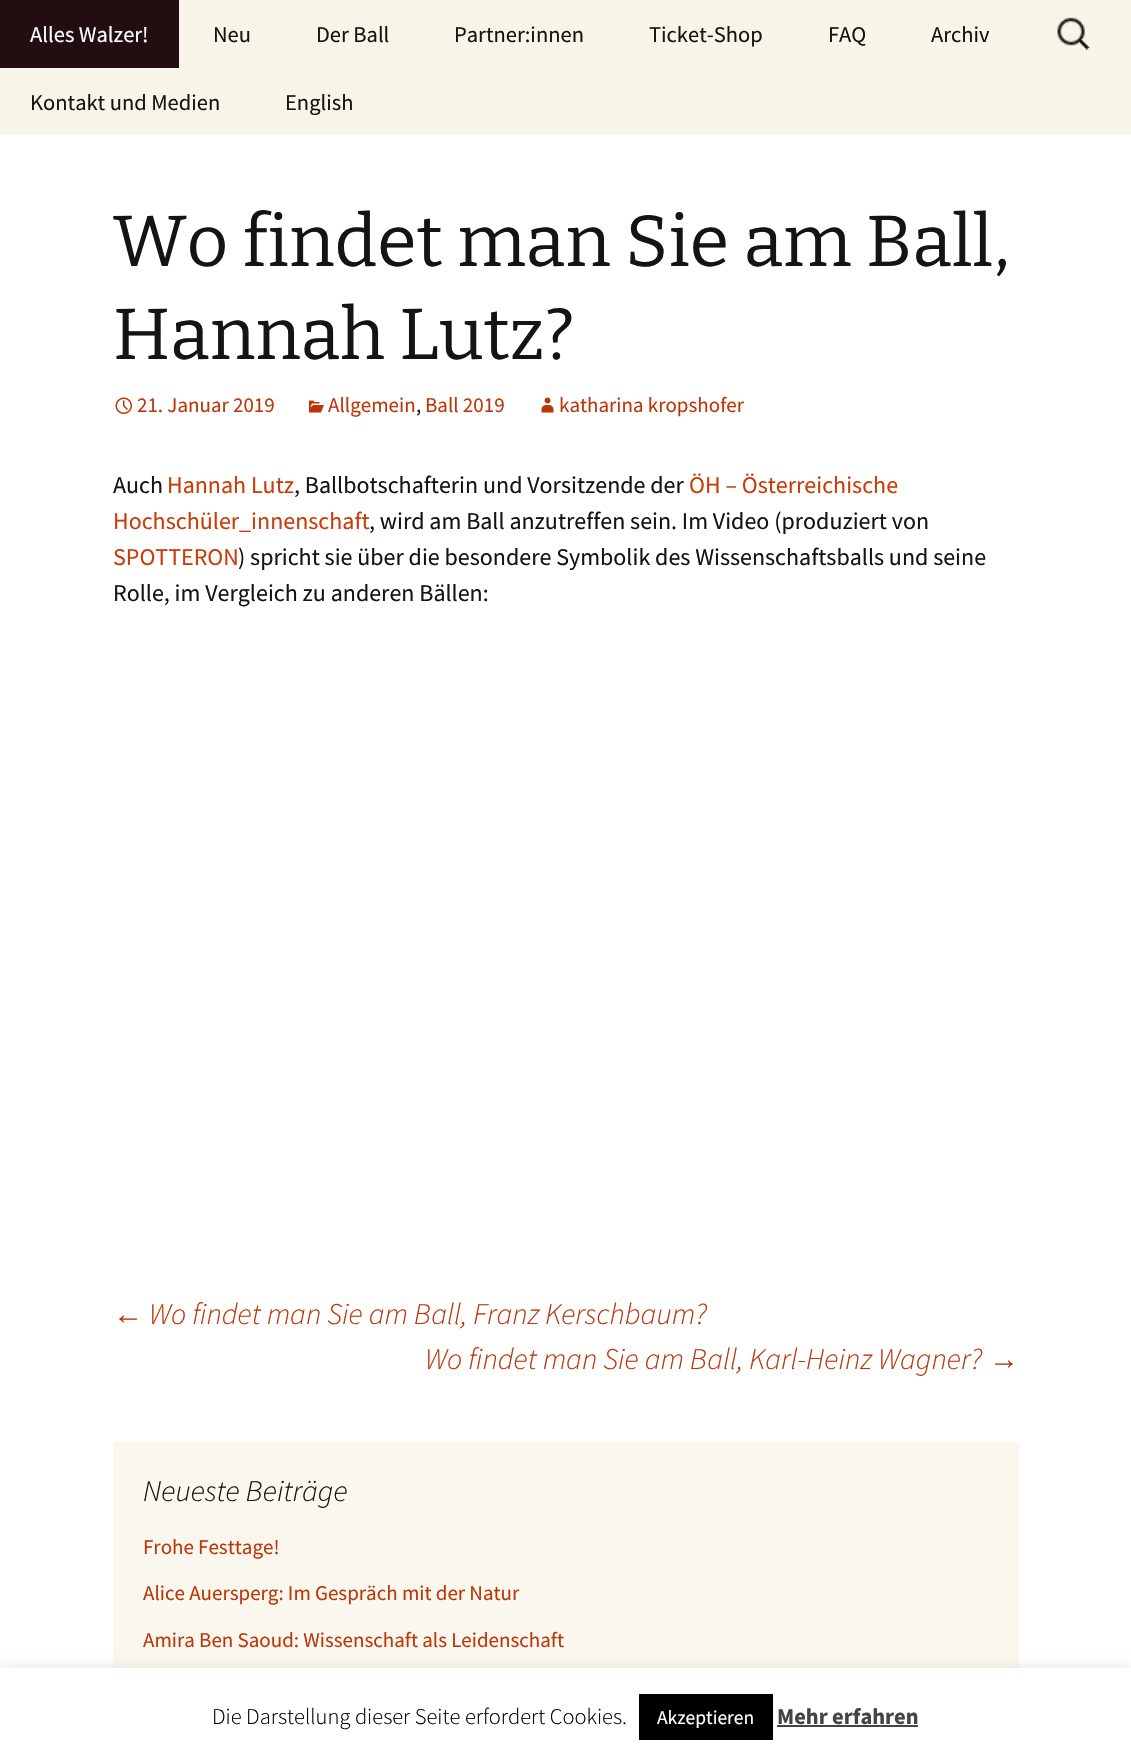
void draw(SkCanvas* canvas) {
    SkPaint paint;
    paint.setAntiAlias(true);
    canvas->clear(0xFFFFFFFF);
    paint.setColor(0xFFF7F5E7);
    canvas->drawRect(SkRect::MakeXYWH(0, 0, 1131, 135), paint);
    paint.setColor(0xFF220E10);
    canvas->drawRect(SkRect::MakeXYWH(0, 0, 179, 68), paint);
    SkFont font1(fontMgr->matchFamilyStyle("Source Sans Pro", SkFontStyle::Normal()), 22.5f);
    font1.setSubpixel(true);
    paint.setColor(0xFFFFFFFF);
    canvas->drawString("Alles Walzer!", 30, 42, font1, paint);
    paint.setColor(0xFF141412);
    canvas->drawString("Neu", 213, 42, font1, paint);
    canvas->drawString("Der Ball", 316, 42, font1, paint);
    canvas->drawString("Partner:innen", 454, 42, font1, paint);
    canvas->drawString("Ticket-Shop", 649, 42, font1, paint);
    canvas->drawString("FAQ", 828, 42, font1, paint);
    canvas->drawString("Archiv", 931, 42, font1, paint);
    canvas->drawString("Kontakt und Medien", 30, 110, font1, paint);
    canvas->drawString("English", 285, 110, font1, paint);
    canvas->drawImageRect(SkImages::DeferredFromEncodedData(SkData::MakeFromFileName("img1.png")), SkRect::MakeXYWH(1057, 17, 33, 33), SkSamplingOptions());
    SkFont font2(fontMgr->matchFamilyStyle("Bitter", SkFontStyle(100, SkFontStyle::kNormal_Width, SkFontStyle::kUpright_Slant)), 72);
    font2.setSubpixel(true);
    canvas->drawString("Wo findet man Sie am Ball,", 113, 266, font2, paint);
    canvas->drawString("Hannah Lutz?", 113, 359, font2, paint);
    canvas->drawImageRect(SkImages::DeferredFromEncodedData(SkData::MakeFromFileName("img2.png")), SkRect::MakeXYWH(115, 397, 17, 17), SkSamplingOptions());
    SkFont font3(fontMgr->matchFamilyStyle("Source Sans Pro", SkFontStyle::Normal()), 21);
    font3.setSubpixel(true);
    paint.setColor(0xFFBC360A);
    canvas->drawString("21. Januar 2019", 137, 412, font3, paint);
    canvas->drawImageRect(SkImages::DeferredFromEncodedData(SkData::MakeFromFileName("img3.png")), SkRect::MakeXYWH(309, 400, 15, 13), SkSamplingOptions());
    canvas->drawString("Allgemein", 328, 412, font3, paint);
    paint.setColor(0xFF141412);
    canvas->drawString(",", 416, 412, font3, paint);
    paint.setColor(0xFFBC360A);
    canvas->drawString("Ball 2019", 425, 412, font3, paint);
    canvas->drawImageRect(SkImages::DeferredFromEncodedData(SkData::MakeFromFileName("img4.png")), SkRect::MakeXYWH(541, 397, 13, 16), SkSamplingOptions());
    canvas->drawString("katharina kropshofer", 559, 412, font3, paint);
    SkFont font4(fontMgr->matchFamilyStyle("Source Sans Pro", SkFontStyle::Normal()), 24);
    font4.setSubpixel(true);
    paint.setColor(0xFF141412);
    canvas->drawString("Auch", 113, 493, font4, paint);
    paint.setColor(0xFFCA3C08);
    canvas->drawString("Hannah Lutz", 167, 493, font4, paint);
    paint.setColor(0xFF141412);
    canvas->drawString(", Ballbotschafterin und Vorsitzende der", 294, 493, font4, paint);
    paint.setColor(0xFFCA3C08);
    canvas->drawString("ÖH – Österreichische", 689, 493, font4, paint);
    canvas->drawString("Hochschüler_innenschaft", 113, 529, font4, paint);
    paint.setColor(0xFF141412);
    canvas->drawString(", wird am Ball anzutreffen sein. Im Video (produziert von", 369, 529, font4, paint);
    paint.setColor(0xFFCA3C08);
    canvas->drawString("SPOTTERON", 113, 565, font4, paint);
    paint.setColor(0xFF141412);
    canvas->drawString(") spricht sie über die besondere Symbolik des Wissenschaftsballs und seine", 238, 565, font4, paint);
    canvas->drawString("Rolle, im Vergleich zu anderen Bällen:", 113, 601, font4, paint);
    SkFont font5(fontMgr->matchFamilyStyle("Liberation Sans", SkFontStyle::Italic()), 30);
    font5.setSubpixel(true);
    paint.setColor(0xFFBC360A);
    canvas->drawString("←", 113, 1324, font5, paint);
    SkFont font6(fontMgr->matchFamilyStyle("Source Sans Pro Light", SkFontStyle(300, SkFontStyle::kNormal_Width, SkFontStyle::kItalic_Slant)), 30);
    font6.setSubpixel(true);
    canvas->drawString("Wo findet man Sie am Ball, Franz Kerschbaum?", 149, 1324, font6, paint);
    canvas->drawString("Wo findet man Sie am Ball, Karl-Heinz Wagner?", 425, 1369, font6, paint);
    canvas->drawString("→", 989, 1369, font5, paint);
    paint.setColor(0xFFFAF8EE);
    canvas->drawRect(SkRect::MakeXYWH(113, 1442, 906, 226), paint);
    paint.setColor(0xFF141412);
    canvas->drawString("Neueste Beiträge", 143, 1501, font6, paint);
    paint.setColor(0xFFBC360A);
    canvas->drawString("Frohe Festtage!", 143, 1554, font3, paint);
    canvas->drawString("Alice Auersperg: Im Gespräch mit der Natur", 143, 1600, font3, paint);
    canvas->drawString("Amira Ben Saoud: Wissenschaft als Leidenschaft", 143, 1647, font3, paint);
    paint.setColor(0x4DACABAB);
    paint.setMaskFilter(SkMaskFilter::MakeBlur(kNormal_SkBlurStyle, 7.5f));
    canvas->drawRect(SkRect::MakeXYWH(0, 1667, 1131, 90), paint);
    paint.setMaskFilter(nullptr);
    paint.setColor(0xFFFFFFFF);
    canvas->drawRect(SkRect::MakeXYWH(0, 1668, 1131, 89), paint);
    SkFont font7(fontMgr->matchFamilyStyle("Source Sans Pro Light", SkFontStyle(300, SkFontStyle::kNormal_Width, SkFontStyle::kUpright_Slant)), 22.5f);
    font7.setSubpixel(true);
    paint.setColor(0xFF000000);
    canvas->drawString("Die Darstellung dieser Seite erfordert Cookies.", 212, 1724, font7, paint);
    canvas->drawRect(SkRect::MakeXYWH(639, 1694, 134, 46), paint);
    SkFont font8(fontMgr->matchFamilyStyle("Source Sans Pro", SkFontStyle::Normal()), 19.5f);
    font8.setSubpixel(true);
    paint.setColor(0xFFFFFFFF);
    canvas->drawString("Akzeptieren", 657, 1724, font8, paint);
    SkFont font9(fontMgr->matchFamilyStyle("Source Sans Pro", SkFontStyle::Bold()), 22.5f);
    font9.setSubpixel(true);
    paint.setColor(0xFF444444);
    canvas->drawString("Mehr erfahren", 777, 1724, font9, paint);
    canvas->drawRect(SkRect::MakeXYWH(777, 1725, 141, 2), paint);
}
